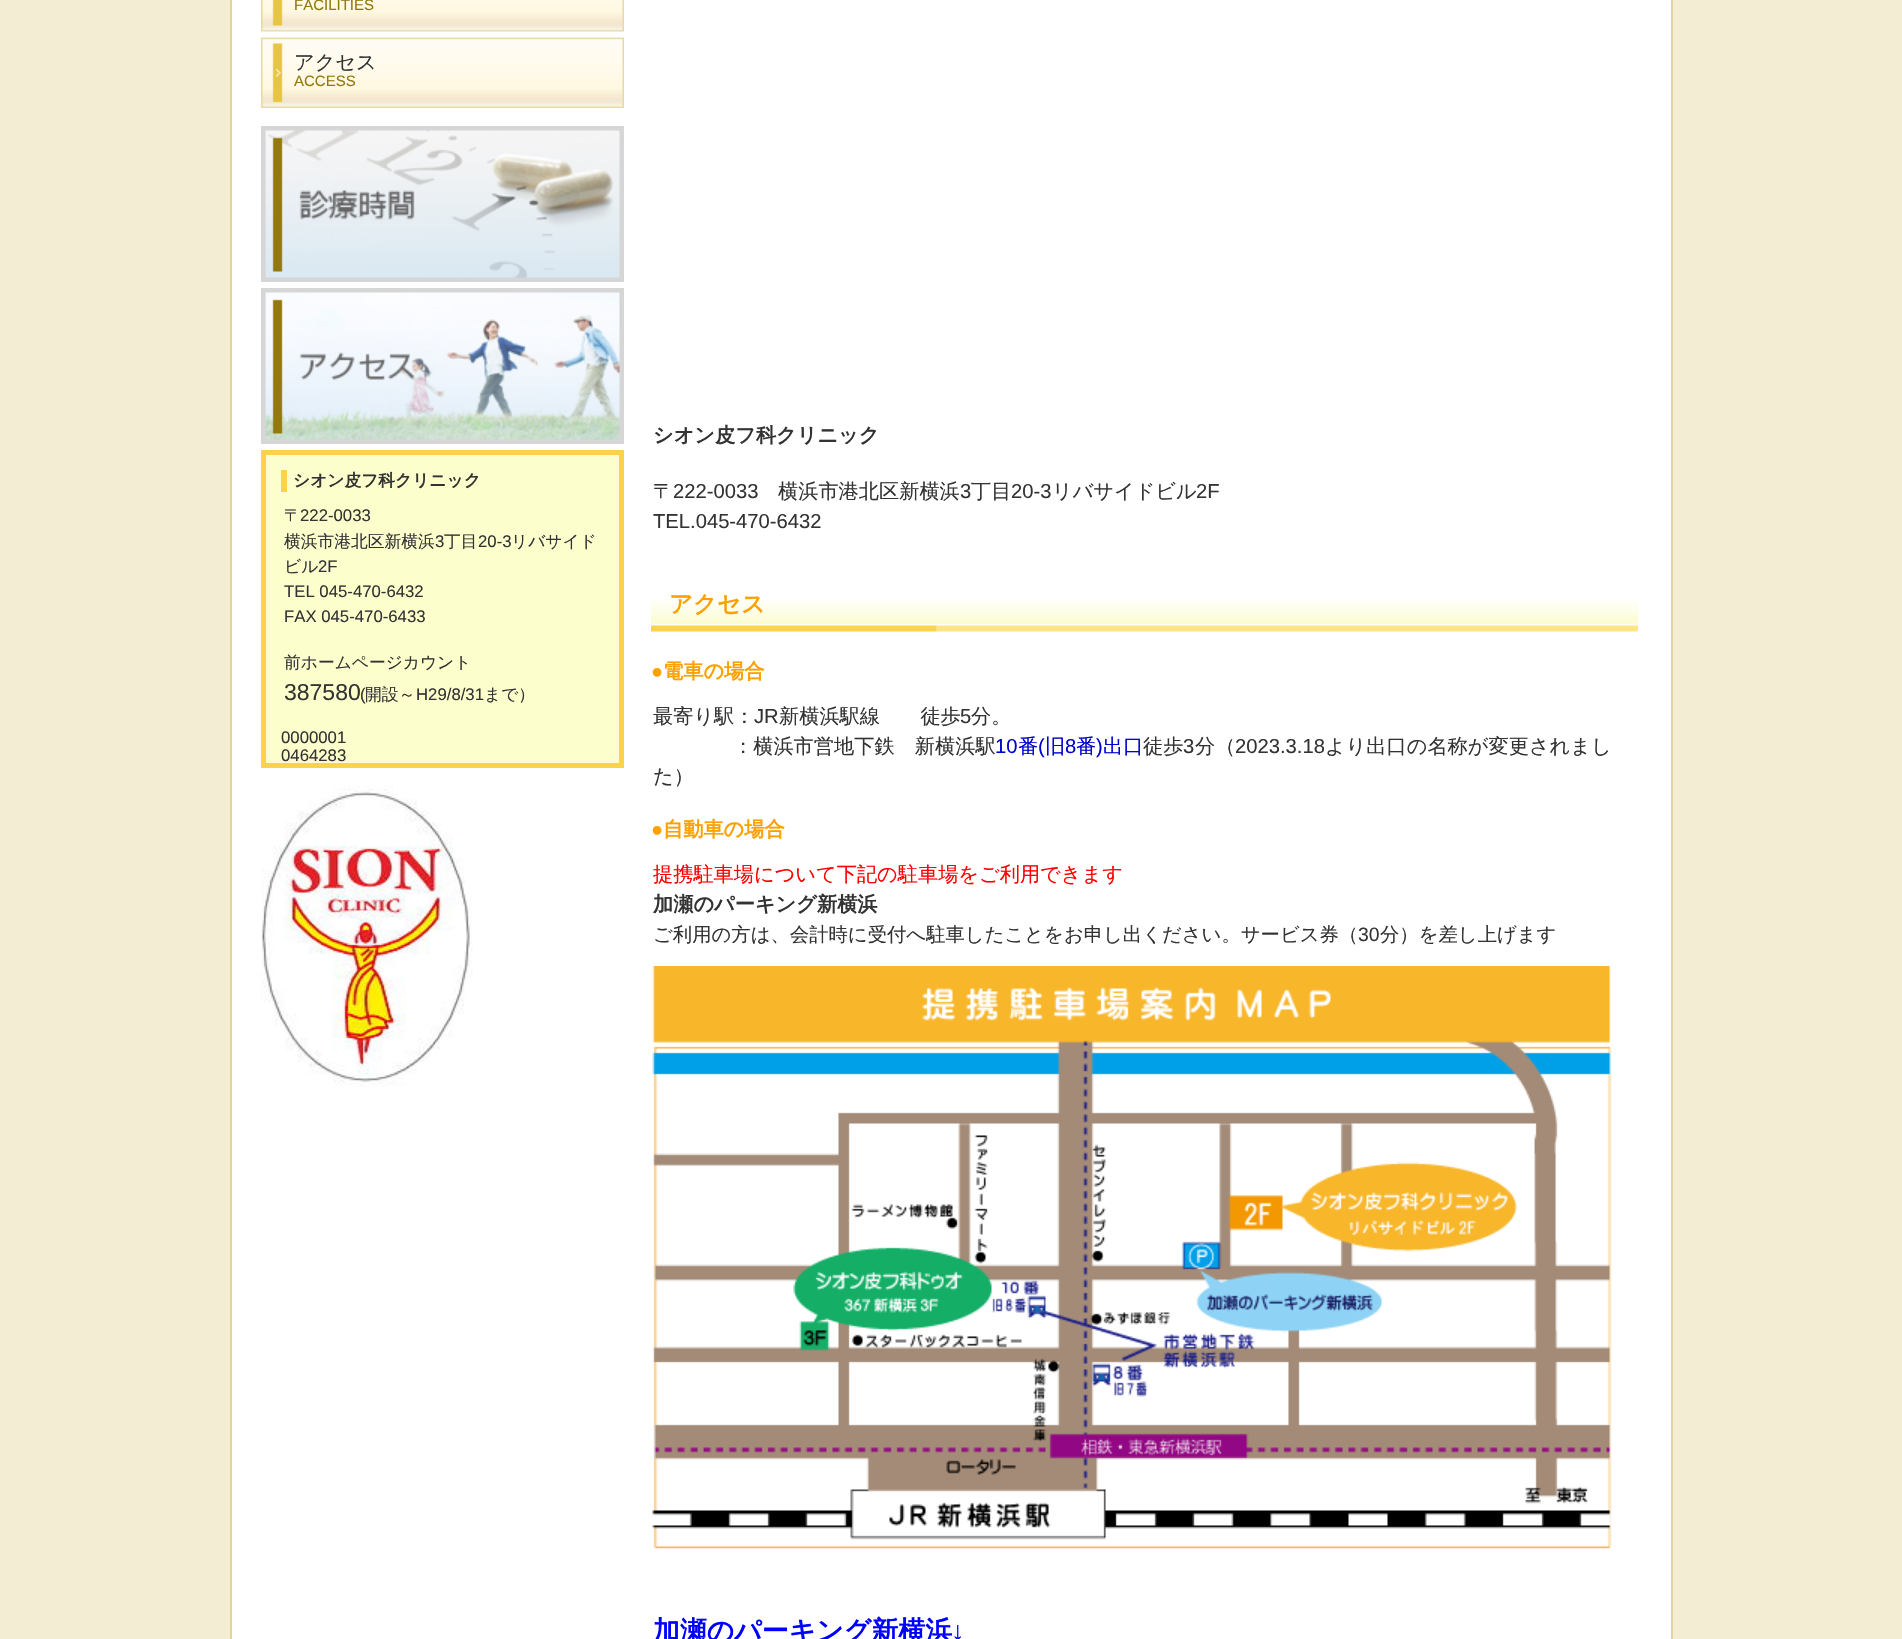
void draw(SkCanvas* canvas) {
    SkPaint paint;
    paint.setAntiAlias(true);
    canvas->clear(0xFFF3EDD3);
    paint.setColor(0xFFFFFFFF);
    canvas->drawRect(SkRect::MakeXYWH(232, 0, 1439, 1639), paint);
    paint.setColor(0xFFE3D598);
    canvas->drawRect(SkRect::MakeXYWH(1671, 0, 2, 1639), paint);
    canvas->drawRect(SkRect::MakeXYWH(230, 0, 2, 1639), paint);
    canvas->drawImageRect(SkImages::DeferredFromEncodedData(SkData::MakeFromFileName("img1.png")), SkRect::MakeXYWH(261, 0, 363, 32), SkSamplingOptions());
    SkFont font1(fontMgr->matchFamilyStyle("Liberation Sans", SkFontStyle::Normal()), 15);
    font1.setSubpixel(true);
    paint.setColor(0xFF92780D);
    canvas->drawString("FACILITIES", 294, 10, font1, paint);
    canvas->drawImageRect(SkImages::DeferredFromEncodedData(SkData::MakeFromFileName("img2.png")), SkRect::MakeXYWH(261, 37, 363, 71), SkSamplingOptions());
    SkFont font2(fontMgr->matchFamilyStyle("WenQuanYi Zen Hei", SkFontStyle(500, SkFontStyle::kNormal_Width, SkFontStyle::kUpright_Slant)), 20.2f);
    font2.setSubpixel(true);
    paint.setColor(0xFF333333);
    canvas->drawString("アクセス", 294, 69, font2, paint);
    paint.setColor(0xFF92780D);
    canvas->drawString("ACCESS", 294, 86, font1, paint);
    canvas->drawImageRect(SkImages::DeferredFromEncodedData(SkData::MakeFromFileName("img3.png")), SkRect::MakeXYWH(261, 126, 363, 156), SkSamplingOptions());
    canvas->drawImageRect(SkImages::DeferredFromEncodedData(SkData::MakeFromFileName("img4.png")), SkRect::MakeXYWH(261, 288, 363, 156), SkSamplingOptions());
    paint.setColor(0xFFFCFECC);
    canvas->drawRect(SkRect::MakeXYWH(263.5f, 452.5f, 358, 313), paint);
    paint.setStyle(SkPaint::kStroke_Style);
    paint.setStrokeWidth(5);
    paint.setColor(0xFFFBD34A);
    canvas->drawRect(SkRect::MakeXYWH(263.5f, 452.5f, 358, 313), paint);
    paint.setStyle(SkPaint::kFill_Style);
    canvas->drawRect(SkRect::MakeXYWH(281, 470, 6, 22), paint);
    SkFont font3(fontMgr->matchFamilyStyle("WenQuanYi Zen Hei", SkFontStyle::Bold()), 16.75f);
    font3.setSubpixel(true);
    paint.setColor(0xFF333333);
    canvas->drawString("シオン皮フ科クリニック", 293, 486, font3, paint);
    SkFont font4(fontMgr->matchFamilyStyle("WenQuanYi Zen Hei", SkFontStyle(500, SkFontStyle::kNormal_Width, SkFontStyle::kUpright_Slant)), 16.75f);
    font4.setSubpixel(true);
    canvas->drawString("〒", 284, 521, font4, paint);
    SkFont font5(fontMgr->matchFamilyStyle("Liberation Sans", SkFontStyle::Normal()), 16.75f);
    font5.setSubpixel(true);
    canvas->drawString("222-0033", 300, 521, font5, paint);
    canvas->drawString("横浜市港北区新横浜", 284, 547, font4, paint);
    canvas->drawString("3", 435, 547, font5, paint);
    canvas->drawString("丁目", 444, 547, font4, paint);
    canvas->drawString("20-3", 478, 547, font5, paint);
    canvas->drawString("リバサイド", 511, 547, font4, paint);
    canvas->drawString("ビル", 284, 572, font4, paint);
    canvas->drawString("2F", 318, 572, font5, paint);
    canvas->drawString("TEL 045-470-6432", 284, 597, font5, paint);
    canvas->drawString("FAX 045-470-6433", 284, 622, font5, paint);
    canvas->drawString("前ホームページカウント", 284, 668, font4, paint);
    SkFont font6(fontMgr->matchFamilyStyle("Liberation Sans", SkFontStyle::Normal()), 23);
    font6.setSubpixel(true);
    canvas->drawString("387580", 284, 700, font6, paint);
    canvas->drawString("(", 360, 700, font5, paint);
    canvas->drawString("開設～", 365, 700, font4, paint);
    canvas->drawString("H29/8/31", 416, 700, font5, paint);
    canvas->drawString("まで）", 484, 700, font4, paint);
    canvas->drawString("0000001", 281, 743, font5, paint);
    canvas->drawString("0464283", 281, 761, font5, paint);
    canvas->drawImageRect(SkImages::DeferredFromEncodedData(SkData::MakeFromFileName("img5.png")), SkRect::MakeXYWH(261, 786, 212, 300), SkSamplingOptions());
    SkFont font7(fontMgr->matchFamilyStyle("WenQuanYi Zen Hei", SkFontStyle::Bold()), 20.2f);
    font7.setSubpixel(true);
    canvas->drawString("シオン皮フ科クリニック", 653, 442, font7, paint);
    canvas->drawString("〒", 653, 498, font2, paint);
    SkFont font8(fontMgr->matchFamilyStyle("Liberation Sans", SkFontStyle::Normal()), 20.2f);
    font8.setSubpixel(true);
    canvas->drawString("222-0033", 673, 498, font8, paint);
    canvas->drawString("横浜市港北区新横浜", 778, 498, font2, paint);
    canvas->drawString("3", 960, 498, font8, paint);
    canvas->drawString("丁目", 971, 498, font2, paint);
    canvas->drawString("20-3", 1011, 498, font8, paint);
    canvas->drawString("リバサイドビル", 1052, 498, font2, paint);
    canvas->drawString("2F", 1196, 498, font8, paint);
    canvas->drawString("TEL.045-470-6432", 653, 528, font8, paint);
    canvas->drawImageRect(SkImages::DeferredFromEncodedData(SkData::MakeFromFileName("img6.png")), SkRect::MakeXYWH(651, 599, 987, 33), SkSamplingOptions());
    SkFont font9(fontMgr->matchFamilyStyle("WenQuanYi Zen Hei", SkFontStyle::Bold()), 23.5f);
    font9.setSubpixel(true);
    paint.setColor(0xFFFDA100);
    canvas->drawString("アクセス", 669, 612, font9, paint);
    SkFont font10(fontMgr->matchFamilyStyle("Liberation Sans", SkFontStyle::Bold()), 20.2f);
    font10.setSubpixel(true);
    canvas->drawString("●", 651, 678, font10, paint);
    canvas->drawString("電車の場合", 663, 678, font7, paint);
    paint.setColor(0xFF333333);
    canvas->drawString("最寄り駅：", 653, 723, font2, paint);
    canvas->drawString("JR", 754, 723, font8, paint);
    canvas->drawString("新横浜駅線　　徒歩", 779, 723, font2, paint);
    canvas->drawString("5", 960, 723, font8, paint);
    canvas->drawString("分。", 971, 723, font2, paint);
    canvas->drawString("：横浜市営地下鉄　新横浜駅", 733, 753, font2, paint);
    paint.setColor(0xFF0000CC);
    canvas->drawString("10", 995, 753, font8, paint);
    canvas->drawString("番", 1018, 753, font2, paint);
    canvas->drawString("(", 1038, 753, font8, paint);
    canvas->drawString("旧", 1045, 753, font2, paint);
    canvas->drawString("8", 1065, 753, font8, paint);
    canvas->drawString("番", 1076, 753, font2, paint);
    canvas->drawString(")", 1096, 753, font8, paint);
    canvas->drawString("出口", 1103, 753, font2, paint);
    paint.setColor(0xFF333333);
    canvas->drawString("徒歩", 1143, 753, font2, paint);
    canvas->drawString("3", 1183, 753, font8, paint);
    canvas->drawString("分（", 1195, 753, font2, paint);
    canvas->drawString("2023.3.18", 1235, 753, font8, paint);
    canvas->drawString("より出口の名称が変更されまし", 1325, 753, font2, paint);
    canvas->drawString("た）", 653, 783, font2, paint);
    paint.setColor(0xFFFDA100);
    canvas->drawString("●", 651, 836, font10, paint);
    canvas->drawString("自動車の場合", 663, 836, font7, paint);
    paint.setColor(0xFFFF0000);
    canvas->drawString("提携駐車場について下記の駐車場をご利用できます", 653, 881, font2, paint);
    paint.setColor(0xFF333333);
    canvas->drawString("加瀬のパーキング新横浜", 653, 911, font7, paint);
    SkFont font11(fontMgr->matchFamilyStyle("WenQuanYi Zen Hei", SkFontStyle(500, SkFontStyle::kNormal_Width, SkFontStyle::kUpright_Slant)), 19.35f);
    font11.setSubpixel(true);
    canvas->drawString("ご利用の方は、会計時に受付へ駐車したことをお申し出ください。サービス券（", 653, 941, font11, paint);
    SkFont font12(fontMgr->matchFamilyStyle("Liberation Sans", SkFontStyle::Normal()), 19.35f);
    font12.setSubpixel(true);
    canvas->drawString("30", 1358, 941, font12, paint);
    canvas->drawString("分）を差し上げます", 1380, 941, font11, paint);
    canvas->drawImageRect(SkImages::DeferredFromEncodedData(SkData::MakeFromFileName("img7.png")), SkRect::MakeXYWH(652, 966, 960, 583), SkSamplingOptions());
    SkFont font13(fontMgr->matchFamilyStyle("WenQuanYi Zen Hei", SkFontStyle::Bold()), 26.9f);
    font13.setSubpixel(true);
    paint.setColor(0xFF0000FF);
    canvas->drawString("加瀬のパーキング新横浜", 653, 1640, font13, paint);
    SkFont font14(fontMgr->matchFamilyStyle("Liberation Sans", SkFontStyle::Bold()), 26.9f);
    font14.setSubpixel(true);
    canvas->drawString("↓", 951, 1640, font14, paint);
}
